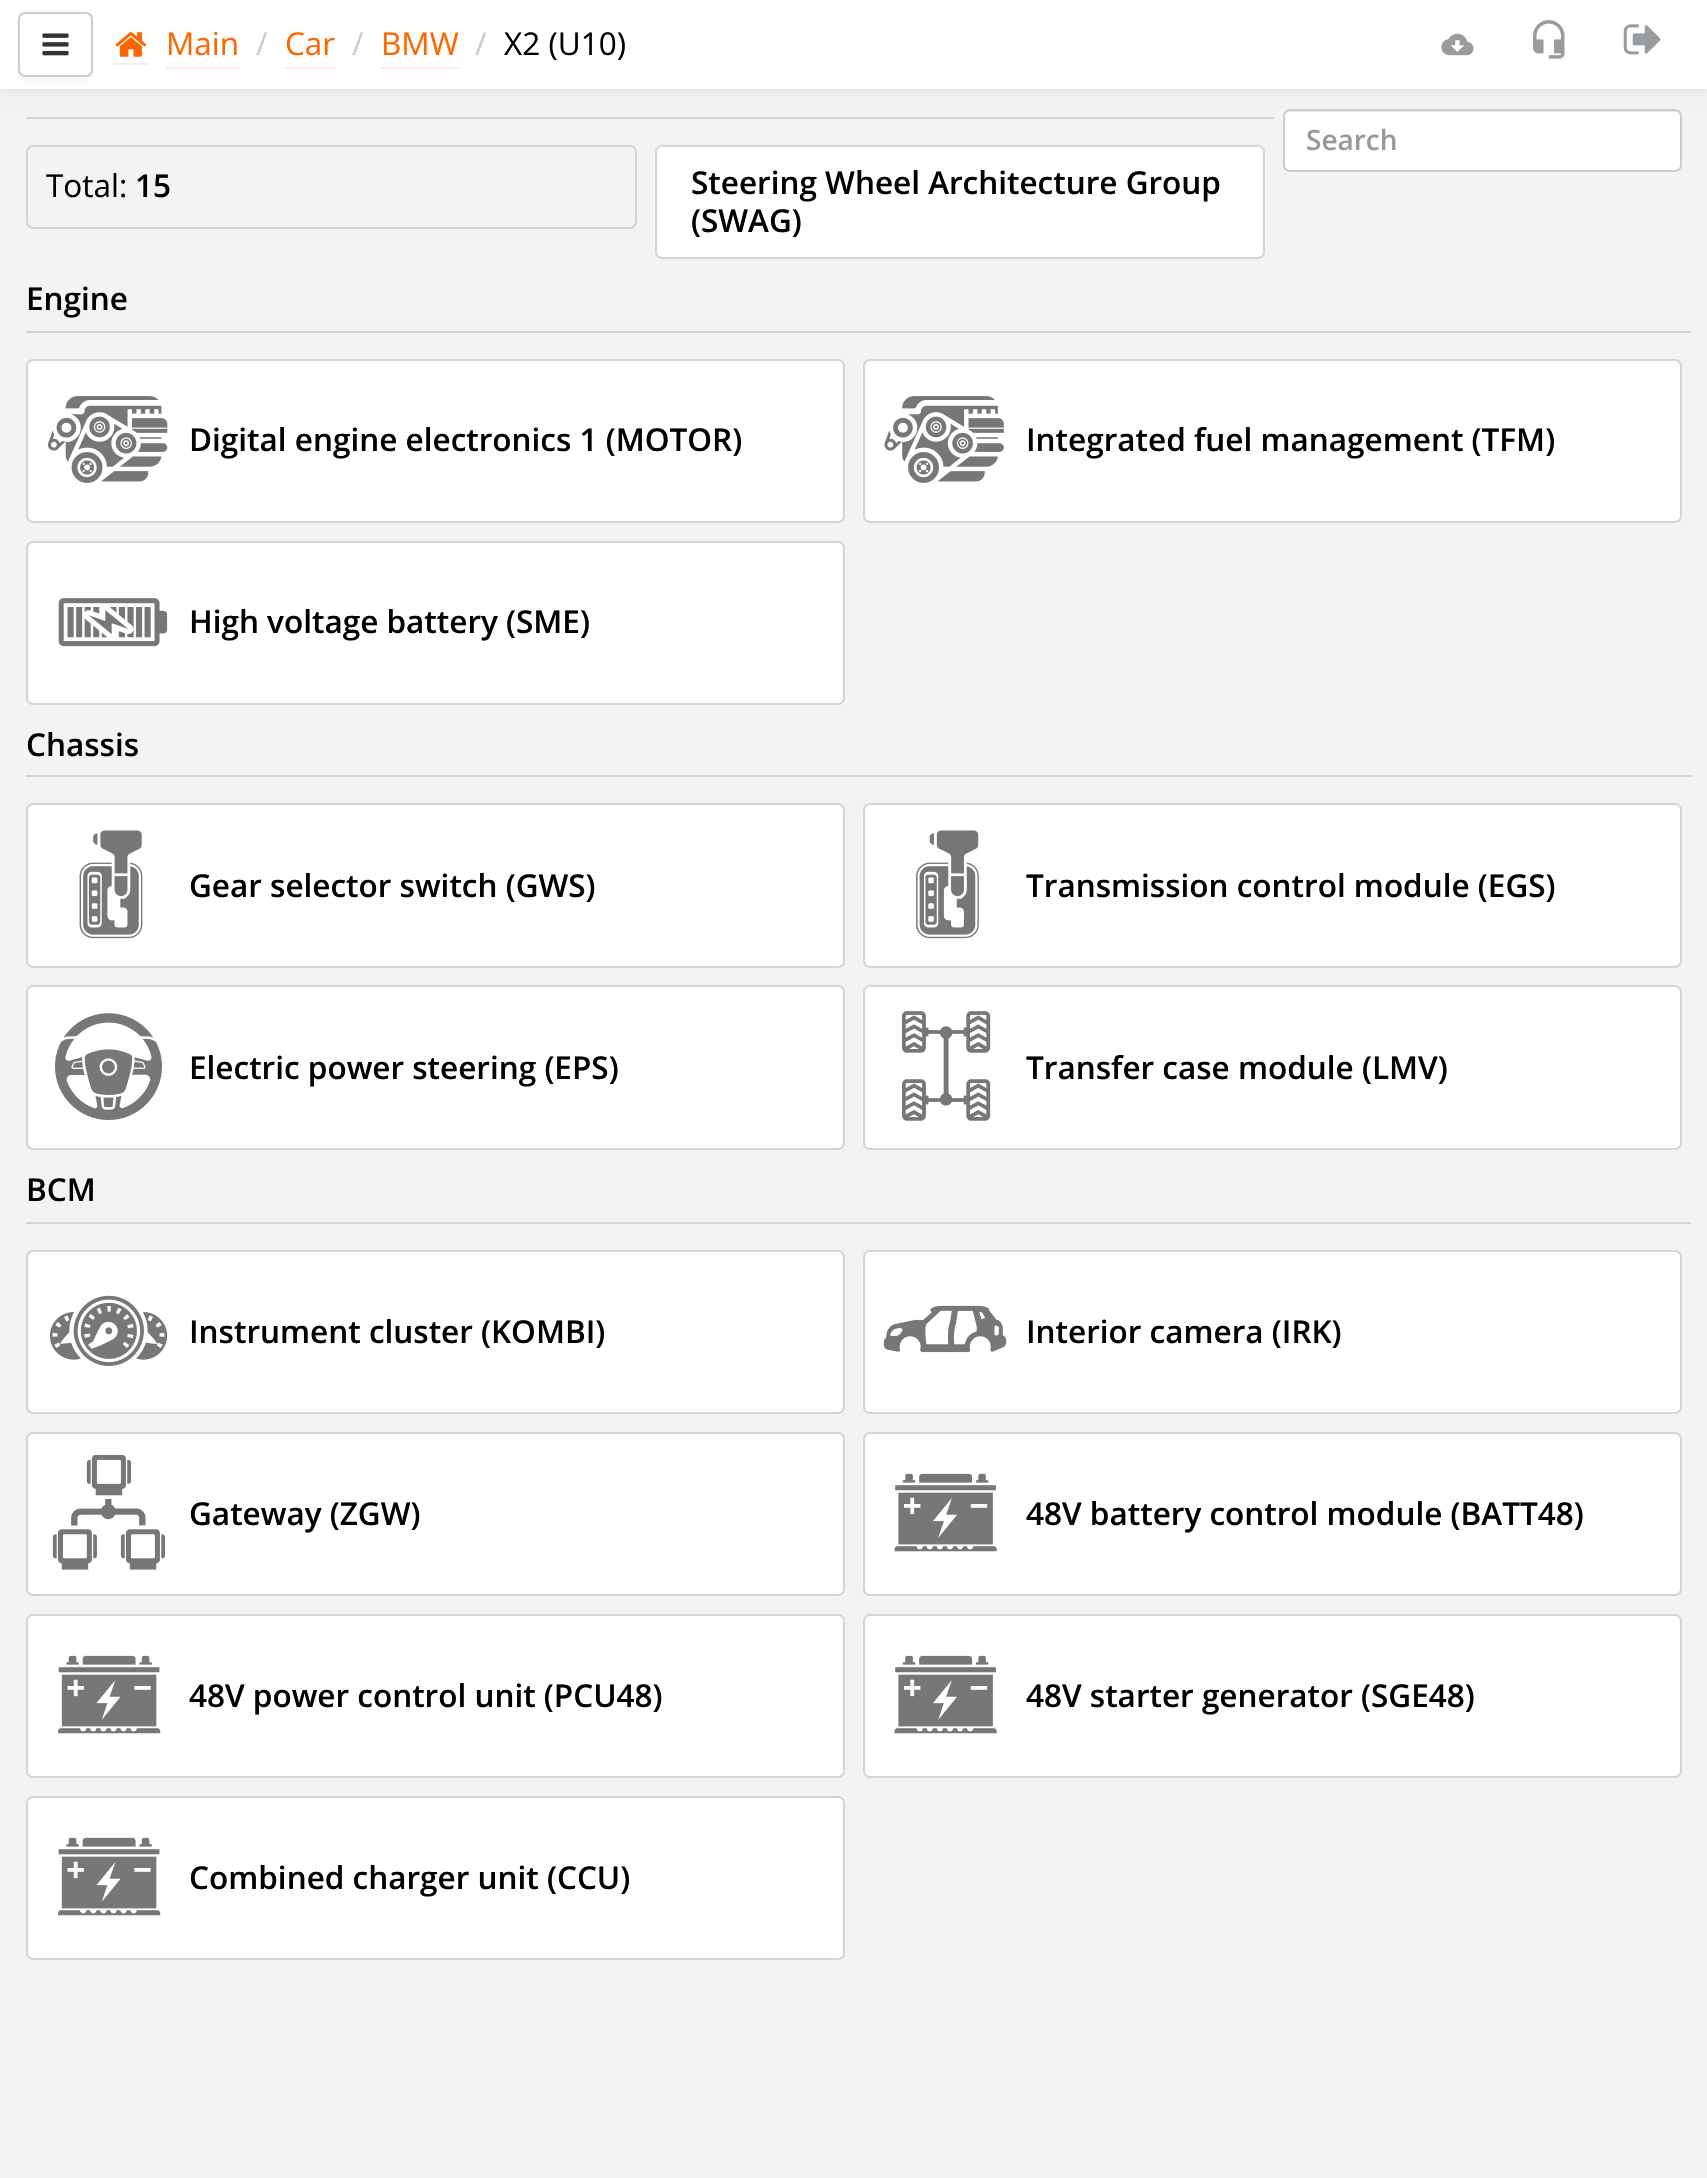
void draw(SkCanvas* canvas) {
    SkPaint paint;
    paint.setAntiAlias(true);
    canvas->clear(0xFFF3F3F4);
    paint.setColor(0x0D000000);
    paint.setMaskFilter(SkMaskFilter::MakeBlur(kNormal_SkBlurStyle, 4.5f));
    canvas->drawRect(SkRect::MakeXYWH(2, 2, 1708, 91), paint);
    paint.setMaskFilter(nullptr);
    paint.setColor(0xFFFFFFFF);
    canvas->drawRect(SkRect::MakeXYWH(0, 0, 1707, 89), paint);
    paint.setColor(0xFFE7EAEC);
    canvas->drawRect(SkRect::MakeXYWH(0, 89, 1707, 2), paint);
    paint.setColor(0x0A000000);
    paint.setMaskFilter(SkMaskFilter::MakeBlur(kNormal_SkBlurStyle, 3.5f));
    canvas->drawRoundRect(SkRect::MakeXYWH(18, 16, 75, 65), 7, 7, paint);
    paint.setMaskFilter(nullptr);
    paint.setColor(0xFFFFFFFF);
    canvas->drawRoundRect(SkRect::MakeXYWH(19, 13, 73, 63), 6, 6, paint);
    paint.setStyle(SkPaint::kStroke_Style);
    paint.setStrokeWidth(2);
    paint.setColor(0xFFCCCCCC);
    canvas->drawRoundRect(SkRect::MakeXYWH(19, 13, 73, 63), 6, 6, paint);
    canvas->drawImageRect(SkImages::DeferredFromEncodedData(SkData::MakeFromFileName("img1.png")), SkRect::MakeXYWH(42, 33, 27, 23), SkSamplingOptions());
    paint.setStyle(SkPaint::kFill_Style);
    paint.setColor(0xFFFFEBDE);
    canvas->drawRect(SkRect::MakeXYWH(114, 63, 35, 2), paint);
    canvas->drawRect(SkRect::MakeXYWH(166, 67, 74, 2), paint);
    canvas->drawImageRect(SkImages::DeferredFromEncodedData(SkData::MakeFromFileName("img2.png")), SkRect::MakeXYWH(115, 32, 32, 25), SkSamplingOptions());
    SkFont font1(fontMgr->matchFamilyStyle("Open Sans", SkFontStyle::Normal()), 31.5f);
    font1.setSubpixel(true);
    paint.setColor(0xFFFF6600);
    canvas->drawString("Main", 166, 55, font1, paint);
    paint.setColor(0xFFCCCCCC);
    canvas->drawString("/", 256, 55, font1, paint);
    paint.setColor(0xFFFF6600);
    canvas->drawString("Car", 285, 55, font1, paint);
    paint.setColor(0xFFFFEBDE);
    canvas->drawRect(SkRect::MakeXYWH(285, 67, 51, 2), paint);
    paint.setColor(0xFFCCCCCC);
    canvas->drawString("/", 352, 55, font1, paint);
    paint.setColor(0xFFFF6600);
    canvas->drawString("BMW", 381, 55, font1, paint);
    paint.setColor(0xFFFFEBDE);
    canvas->drawRect(SkRect::MakeXYWH(380, 67, 79, 2), paint);
    paint.setColor(0xFFCCCCCC);
    canvas->drawString("/", 475, 55, font1, paint);
    paint.setColor(0xFF000000);
    canvas->drawString("X2 (U10)", 504, 55, font1, paint);
    canvas->drawImageRect(SkImages::DeferredFromEncodedData(SkData::MakeFromFileName("img3.png")), SkRect::MakeXYWH(1441, 33, 33, 23), SkSamplingOptions());
    canvas->drawImageRect(SkImages::DeferredFromEncodedData(SkData::MakeFromFileName("img4.png")), SkRect::MakeXYWH(1533, 20, 32, 39), SkSamplingOptions());
    canvas->drawImageRect(SkImages::DeferredFromEncodedData(SkData::MakeFromFileName("img5.png")), SkRect::MakeXYWH(1623, 24, 38, 31), SkSamplingOptions());
    paint.setColor(0xFFFFFFFF);
    canvas->drawRoundRect(SkRect::MakeXYWH(1283, 109, 399, 63), 7, 7, paint);
    paint.setColor(0xFFECECEC);
    canvas->drawPath(SkPathBuilder().moveTo(1290, 112).lineTo(1675, 112).cubicTo(1678, 112, 1680, 114, 1680, 117).lineTo(1680, 115).cubicTo(1680, 112, 1678, 110, 1675, 110).lineTo(1290, 110).cubicTo(1288, 110, 1285, 112, 1285, 114).cubicTo(1286, 113, 1288, 112, 1290, 112).close().detach(), paint);
    paint.setStyle(SkPaint::kStroke_Style);
    paint.setColor(0xFFCCCCCC);
    canvas->drawRoundRect(SkRect::MakeXYWH(1284, 110, 397, 61), 6, 6, paint);
    SkFont font2(fontMgr->matchFamilyStyle("Open Sans", SkFontStyle(600, SkFontStyle::kNormal_Width, SkFontStyle::kUpright_Slant)), 28);
    font2.setSubpixel(true);
    paint.setStyle(SkPaint::kFill_Style);
    paint.setColor(0xFF999999);
    canvas->drawString("Search", 1306, 150, font2, paint);
    paint.setColor(0xFFD4D4D4);
    canvas->drawRect(SkRect::MakeXYWH(26, 117, 1248, 2), paint);
    paint.setStyle(SkPaint::kStroke_Style);
    canvas->drawRoundRect(SkRect::MakeXYWH(27, 146, 609, 82), 6, 6, paint);
    paint.setStyle(SkPaint::kFill_Style);
    paint.setColor(0xFF000000);
    canvas->drawString("Total:", 46, 197, font1, paint);
    SkFont font3(fontMgr->matchFamilyStyle("Open Sans", SkFontStyle(600, SkFontStyle::kNormal_Width, SkFontStyle::kUpright_Slant)), 31.5f);
    font3.setSubpixel(true);
    canvas->drawString("15", 135, 197, font3, paint);
    paint.setColor(0xFFFFFFFF);
    canvas->drawRoundRect(SkRect::MakeXYWH(656, 146, 608, 112), 6, 6, paint);
    paint.setStyle(SkPaint::kStroke_Style);
    paint.setColor(0xFFD4D4D4);
    canvas->drawRoundRect(SkRect::MakeXYWH(656, 146, 608, 112), 6, 6, paint);
    paint.setStyle(SkPaint::kFill_Style);
    paint.setColor(0xFF000000);
    canvas->drawString("Steering Wheel Architecture Group", 691, 194, font3, paint);
    canvas->drawString("(SWAG)", 691, 232, font3, paint);
    canvas->drawString("Engine", 26, 310, font3, paint);
    paint.setColor(0xFFD4D4D4);
    canvas->drawRect(SkRect::MakeXYWH(26, 331, 1665, 2), paint);
    paint.setColor(0xFFFFFFFF);
    canvas->drawRoundRect(SkRect::MakeXYWH(27, 360, 817, 162), 6, 6, paint);
    paint.setStyle(SkPaint::kStroke_Style);
    paint.setColor(0xFFD4D4D4);
    canvas->drawRoundRect(SkRect::MakeXYWH(27, 360, 817, 162), 6, 6, paint);
    canvas->drawImageRect(SkImages::DeferredFromEncodedData(SkData::MakeFromFileName("img6.png")), SkRect::MakeXYWH(48, 396, 120, 87), SkSamplingOptions());
    paint.setStyle(SkPaint::kFill_Style);
    paint.setColor(0xFF000000);
    canvas->drawString("Digital engine electronics 1 (MOTOR)", 189, 451, font3, paint);
    paint.setColor(0xFFFFFFFF);
    canvas->drawRoundRect(SkRect::MakeXYWH(864, 360, 817, 162), 6, 6, paint);
    paint.setStyle(SkPaint::kStroke_Style);
    paint.setColor(0xFFD4D4D4);
    canvas->drawRoundRect(SkRect::MakeXYWH(864, 360, 817, 162), 6, 6, paint);
    canvas->drawImageRect(SkImages::DeferredFromEncodedData(SkData::MakeFromFileName("img7.png")), SkRect::MakeXYWH(884, 396, 120, 87), SkSamplingOptions());
    paint.setStyle(SkPaint::kFill_Style);
    paint.setColor(0xFF000000);
    canvas->drawString("Integrated fuel management (TFM)", 1026, 451, font3, paint);
    paint.setColor(0xFFFFFFFF);
    canvas->drawRoundRect(SkRect::MakeXYWH(27, 542, 817, 162), 6, 6, paint);
    paint.setStyle(SkPaint::kStroke_Style);
    paint.setColor(0xFFD4D4D4);
    canvas->drawRoundRect(SkRect::MakeXYWH(27, 542, 817, 162), 6, 6, paint);
    canvas->drawImageRect(SkImages::DeferredFromEncodedData(SkData::MakeFromFileName("img8.png")), SkRect::MakeXYWH(58, 598, 110, 49), SkSamplingOptions());
    paint.setStyle(SkPaint::kFill_Style);
    paint.setColor(0xFF000000);
    canvas->drawString("High voltage battery (SME)", 189, 633, font3, paint);
    canvas->drawString("Chassis", 26, 756, font3, paint);
    paint.setColor(0xFFD4D4D4);
    canvas->drawRect(SkRect::MakeXYWH(26, 775, 1665, 2), paint);
    paint.setColor(0xFFFFFFFF);
    canvas->drawRoundRect(SkRect::MakeXYWH(27, 804, 817, 163), 6, 6, paint);
    paint.setStyle(SkPaint::kStroke_Style);
    paint.setColor(0xFFD4D4D4);
    canvas->drawRoundRect(SkRect::MakeXYWH(27, 804, 817, 163), 6, 6, paint);
    canvas->drawImageRect(SkImages::DeferredFromEncodedData(SkData::MakeFromFileName("img9.png")), SkRect::MakeXYWH(79, 830, 64, 109), SkSamplingOptions());
    paint.setStyle(SkPaint::kFill_Style);
    paint.setColor(0xFF000000);
    canvas->drawString("Gear selector switch (GWS)", 189, 897, font3, paint);
    paint.setColor(0xFFFFFFFF);
    canvas->drawRoundRect(SkRect::MakeXYWH(864, 804, 817, 163), 6, 6, paint);
    paint.setStyle(SkPaint::kStroke_Style);
    paint.setColor(0xFFD4D4D4);
    canvas->drawRoundRect(SkRect::MakeXYWH(864, 804, 817, 163), 6, 6, paint);
    canvas->drawImageRect(SkImages::DeferredFromEncodedData(SkData::MakeFromFileName("img10.png")), SkRect::MakeXYWH(916, 830, 63, 109), SkSamplingOptions());
    paint.setStyle(SkPaint::kFill_Style);
    paint.setColor(0xFF000000);
    canvas->drawString("Transmission control module (EGS)", 1026, 897, font3, paint);
    paint.setColor(0xFFFFFFFF);
    canvas->drawRoundRect(SkRect::MakeXYWH(27, 986, 817, 163), 6, 6, paint);
    paint.setStyle(SkPaint::kStroke_Style);
    paint.setColor(0xFFD4D4D4);
    canvas->drawRoundRect(SkRect::MakeXYWH(27, 986, 817, 163), 6, 6, paint);
    canvas->drawImageRect(SkImages::DeferredFromEncodedData(SkData::MakeFromFileName("img11.png")), SkRect::MakeXYWH(55, 1013, 107, 107), SkSamplingOptions());
    paint.setStyle(SkPaint::kFill_Style);
    paint.setColor(0xFF000000);
    canvas->drawString("Electric power steering (EPS)", 189, 1079, font3, paint);
    paint.setColor(0xFFFFFFFF);
    canvas->drawRoundRect(SkRect::MakeXYWH(864, 986, 817, 163), 6, 6, paint);
    paint.setStyle(SkPaint::kStroke_Style);
    paint.setColor(0xFFD4D4D4);
    canvas->drawRoundRect(SkRect::MakeXYWH(864, 986, 817, 163), 6, 6, paint);
    canvas->drawImageRect(SkImages::DeferredFromEncodedData(SkData::MakeFromFileName("img12.png")), SkRect::MakeXYWH(901, 1011, 90, 110), SkSamplingOptions());
    paint.setStyle(SkPaint::kFill_Style);
    paint.setColor(0xFF000000);
    canvas->drawString("Transfer case module (LMV)", 1026, 1079, font3, paint);
    canvas->drawString("BCM", 26, 1201, font3, paint);
    paint.setColor(0xFFD4D4D4);
    canvas->drawRect(SkRect::MakeXYWH(26, 1222, 1665, 2), paint);
    paint.setColor(0xFFFFFFFF);
    canvas->drawRoundRect(SkRect::MakeXYWH(27, 1251, 817, 162), 6, 6, paint);
    paint.setStyle(SkPaint::kStroke_Style);
    paint.setColor(0xFFD4D4D4);
    canvas->drawRoundRect(SkRect::MakeXYWH(27, 1251, 817, 162), 6, 6, paint);
    canvas->drawImageRect(SkImages::DeferredFromEncodedData(SkData::MakeFromFileName("img13.png")), SkRect::MakeXYWH(49, 1295, 119, 71), SkSamplingOptions());
    paint.setStyle(SkPaint::kFill_Style);
    paint.setColor(0xFF000000);
    canvas->drawString("Instrument cluster (KOMBI)", 189, 1343, font3, paint);
    paint.setColor(0xFFFFFFFF);
    canvas->drawRoundRect(SkRect::MakeXYWH(864, 1251, 817, 162), 6, 6, paint);
    paint.setStyle(SkPaint::kStroke_Style);
    paint.setColor(0xFFD4D4D4);
    canvas->drawRoundRect(SkRect::MakeXYWH(864, 1251, 817, 162), 6, 6, paint);
    canvas->drawImageRect(SkImages::DeferredFromEncodedData(SkData::MakeFromFileName("img14.png")), SkRect::MakeXYWH(883, 1305, 124, 48), SkSamplingOptions());
    paint.setStyle(SkPaint::kFill_Style);
    paint.setColor(0xFF000000);
    canvas->drawString("Interior camera (IRK)", 1026, 1343, font3, paint);
    paint.setColor(0xFFFFFFFF);
    canvas->drawRoundRect(SkRect::MakeXYWH(27, 1433, 817, 162), 6, 6, paint);
    paint.setStyle(SkPaint::kStroke_Style);
    paint.setColor(0xFFD4D4D4);
    canvas->drawRoundRect(SkRect::MakeXYWH(27, 1433, 817, 162), 6, 6, paint);
    canvas->drawImageRect(SkImages::DeferredFromEncodedData(SkData::MakeFromFileName("img15.png")), SkRect::MakeXYWH(52, 1454, 113, 116), SkSamplingOptions());
    paint.setStyle(SkPaint::kFill_Style);
    paint.setColor(0xFF000000);
    canvas->drawString("Gateway (ZGW)", 189, 1525, font3, paint);
    paint.setColor(0xFFFFFFFF);
    canvas->drawRoundRect(SkRect::MakeXYWH(864, 1433, 817, 162), 6, 6, paint);
    paint.setStyle(SkPaint::kStroke_Style);
    paint.setColor(0xFFD4D4D4);
    canvas->drawRoundRect(SkRect::MakeXYWH(864, 1433, 817, 162), 6, 6, paint);
    canvas->drawImageRect(SkImages::DeferredFromEncodedData(SkData::MakeFromFileName("img16.png")), SkRect::MakeXYWH(894, 1473, 103, 79), SkSamplingOptions());
    paint.setStyle(SkPaint::kFill_Style);
    paint.setColor(0xFF000000);
    canvas->drawString("48V battery control module (BATT48)", 1026, 1525, font3, paint);
    paint.setColor(0xFFFFFFFF);
    canvas->drawRoundRect(SkRect::MakeXYWH(27, 1615, 817, 162), 6, 6, paint);
    paint.setStyle(SkPaint::kStroke_Style);
    paint.setColor(0xFFD4D4D4);
    canvas->drawRoundRect(SkRect::MakeXYWH(27, 1615, 817, 162), 6, 6, paint);
    canvas->drawImageRect(SkImages::DeferredFromEncodedData(SkData::MakeFromFileName("img17.png")), SkRect::MakeXYWH(58, 1655, 103, 79), SkSamplingOptions());
    paint.setStyle(SkPaint::kFill_Style);
    paint.setColor(0xFF000000);
    canvas->drawString("48V power control unit (PCU48)", 189, 1707, font3, paint);
    paint.setColor(0xFFFFFFFF);
    canvas->drawRoundRect(SkRect::MakeXYWH(864, 1615, 817, 162), 6, 6, paint);
    paint.setStyle(SkPaint::kStroke_Style);
    paint.setColor(0xFFD4D4D4);
    canvas->drawRoundRect(SkRect::MakeXYWH(864, 1615, 817, 162), 6, 6, paint);
    canvas->drawImageRect(SkImages::DeferredFromEncodedData(SkData::MakeFromFileName("img16.png")), SkRect::MakeXYWH(894, 1655, 103, 79), SkSamplingOptions());
    paint.setStyle(SkPaint::kFill_Style);
    paint.setColor(0xFF000000);
    canvas->drawString("48V starter generator (SGE48)", 1026, 1707, font3, paint);
    paint.setColor(0xFFFFFFFF);
    canvas->drawRoundRect(SkRect::MakeXYWH(27, 1797, 817, 162), 6, 6, paint);
    paint.setStyle(SkPaint::kStroke_Style);
    paint.setColor(0xFFD4D4D4);
    canvas->drawRoundRect(SkRect::MakeXYWH(27, 1797, 817, 162), 6, 6, paint);
    canvas->drawImageRect(SkImages::DeferredFromEncodedData(SkData::MakeFromFileName("img17.png")), SkRect::MakeXYWH(58, 1837, 103, 79), SkSamplingOptions());
    paint.setStyle(SkPaint::kFill_Style);
    paint.setColor(0xFF000000);
    canvas->drawString("Combined charger unit (CCU)", 189, 1889, font3, paint);
}
